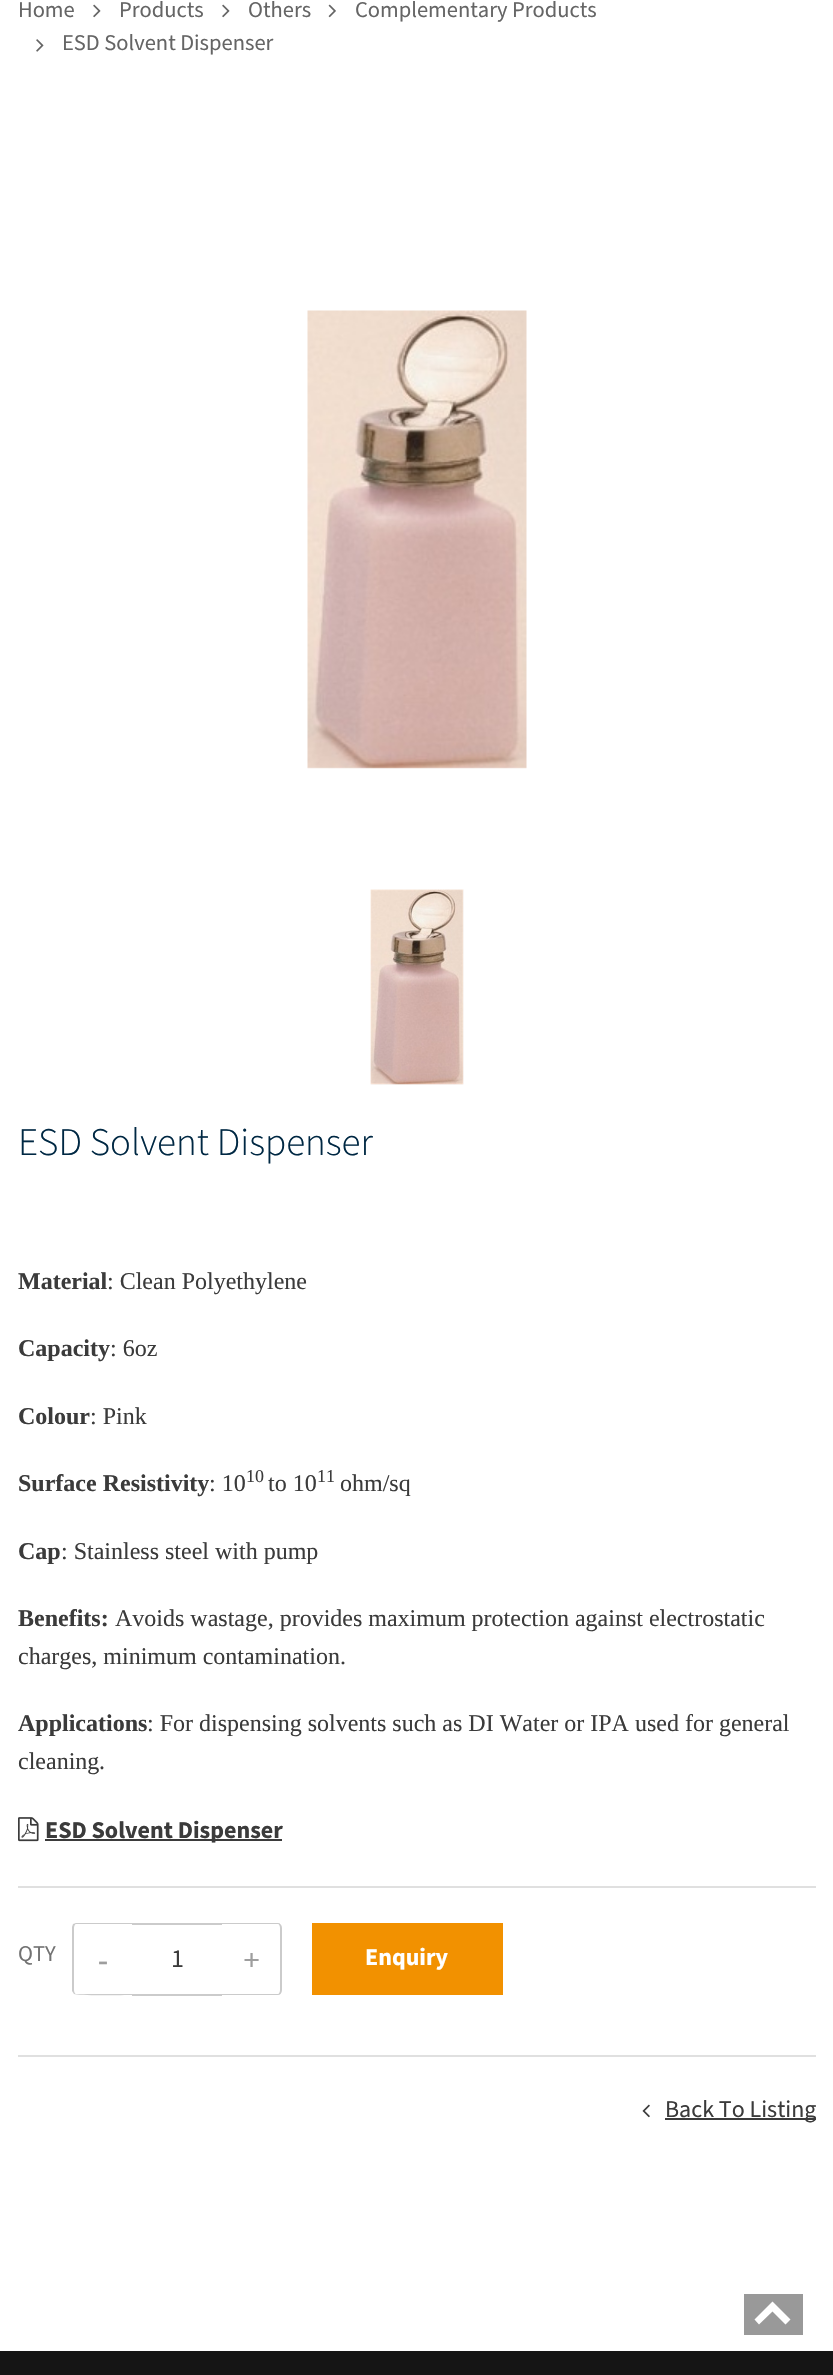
void draw(SkCanvas* canvas) {
    SkPaint paint;
    paint.setAntiAlias(true);
    canvas->clear(0xFFFFFFFF);
    SkFont font1(fontMgr->matchFamilyStyle("Mada", SkFontStyle::Normal()), 22.5f);
    font1.setSubpixel(true);
    paint.setColor(0xFF656565);
    canvas->drawString("Home", 18, 17, font1, paint);
    canvas->drawImageRect(SkImages::DeferredFromEncodedData(SkData::MakeFromFileName("img1.png")), SkRect::MakeXYWH(93, 4, 8, 14), SkSamplingOptions());
    canvas->drawString("Products", 119, 17, font1, paint);
    canvas->drawImageRect(SkImages::DeferredFromEncodedData(SkData::MakeFromFileName("img1.png")), SkRect::MakeXYWH(222, 4, 8, 14), SkSamplingOptions());
    canvas->drawString("Others", 248, 17, font1, paint);
    canvas->drawImageRect(SkImages::DeferredFromEncodedData(SkData::MakeFromFileName("img2.png")), SkRect::MakeXYWH(328, 4, 8, 14), SkSamplingOptions());
    canvas->drawString("Complementary Products", 355, 17, font1, paint);
    canvas->drawImageRect(SkImages::DeferredFromEncodedData(SkData::MakeFromFileName("img3.png")), SkRect::MakeXYWH(36, 39, 8, 13), SkSamplingOptions());
    canvas->drawString("ESD Solvent Dispenser", 62, 50, font1, paint);
    canvas->drawImageRect(SkImages::DeferredFromEncodedData(SkData::MakeFromFileName("img4.png")), SkRect::MakeXYWH(307, 310, 220, 459), SkSamplingOptions());
    canvas->drawImageRect(SkImages::DeferredFromEncodedData(SkData::MakeFromFileName("img5.png")), SkRect::MakeXYWH(370, 889, 94, 196), SkSamplingOptions());
    SkFont font2(fontMgr->matchFamilyStyle("Mada", SkFontStyle(300, SkFontStyle::kNormal_Width, SkFontStyle::kUpright_Slant)), 39);
    font2.setSubpixel(true);
    paint.setColor(0xFF002843);
    canvas->drawString("ESD Solvent Dispenser", 18, 1155, font2, paint);
    SkFont font3(fontMgr->matchFamilyStyle("Liberation Serif", SkFontStyle::Bold()), 24);
    font3.setSubpixel(true);
    paint.setColor(0xFF3B3B3B);
    canvas->drawString("Material", 18, 1289, font3, paint);
    SkFont font4(fontMgr->matchFamilyStyle("Liberation Serif", SkFontStyle::Normal()), 24);
    font4.setSubpixel(true);
    canvas->drawString(": Clean Polyethylene", 107, 1289, font4, paint);
    canvas->drawString("Capacity", 18, 1356, font3, paint);
    canvas->drawString(": 6oz", 110, 1356, font4, paint);
    canvas->drawString("Colour", 18, 1424, font3, paint);
    canvas->drawString(": Pink", 90, 1424, font4, paint);
    canvas->drawString("Surface Resistivity", 18, 1491, font3, paint);
    canvas->drawString(": 10", 209, 1491, font4, paint);
    SkFont font5(fontMgr->matchFamilyStyle("Liberation Serif", SkFontStyle::Normal()), 18);
    font5.setSubpixel(true);
    canvas->drawString("10", 246, 1482, font5, paint);
    canvas->drawString("to 10", 268, 1491, font4, paint);
    canvas->drawString("11", 317, 1482, font5, paint);
    canvas->drawString("ohm/sq", 340, 1491, font4, paint);
    canvas->drawString("Cap", 18, 1559, font3, paint);
    canvas->drawString(": Stainless steel with pump", 61, 1559, font4, paint);
    canvas->drawString("Benefits:", 18, 1626, font3, paint);
    canvas->drawString("Avoids wastage, provides maximum protection against electrostatic", 115, 1626, font4, paint);
    canvas->drawString("charges, minimum contamination.", 18, 1664, font4, paint);
    canvas->drawString("Applications", 18, 1731, font3, paint);
    canvas->drawString(": For dispensing solvents such as DI Water or IPA used for general", 147, 1731, font4, paint);
    canvas->drawString("cleaning", 18, 1769, font4, paint);
    SkFont font6(fontMgr->matchFamilyStyle("Mada", SkFontStyle::Normal()), 24);
    font6.setSubpixel(true);
    canvas->drawString(".", 99, 1769, font6, paint);
    canvas->drawImageRect(SkImages::DeferredFromEncodedData(SkData::MakeFromFileName("img6.png")), SkRect::MakeXYWH(18, 1817, 21, 25), SkSamplingOptions());
    canvas->drawRect(SkRect::MakeXYWH(45, 1839, 237, 2), paint);
    SkFont font7(fontMgr->matchFamilyStyle("Mada", SkFontStyle::Bold()), 24);
    font7.setSubpixel(true);
    canvas->drawString("ESD Solvent Dispenser", 45, 1838, font7, paint);
    paint.setColor(0xFFE0E0E0);
    canvas->drawRect(SkRect::MakeXYWH(18, 1886, 798, 2), paint);
    paint.setColor(0xFF727272);
    canvas->drawString("QTY", 18, 1961, font1, paint);
    paint.setColor(0xFFCBCBCB);
    canvas->drawPath(SkPathBuilder(SkPathFillType::kEvenOdd).moveTo(76, 1923).lineTo(132, 1923).lineTo(132, 1995).cubicTo(125, 1995, 77, 1996, 74, 1994).lineTo(72, 1991).lineTo(72, 1927).lineTo(73, 1924).close().moveTo(76, 1924).lineTo(132, 1924).lineTo(132, 1994).lineTo(76, 1994).cubicTo(75, 1994, 74, 1992, 74, 1990).lineTo(74, 1928).cubicTo(74, 1926, 75, 1924, 76, 1924).close().detach(), paint);
    SkFont font8(fontMgr->matchFamilyStyle("Liberation Serif", SkFontStyle::Bold()), 30);
    font8.setSubpixel(true);
    paint.setColor(0xFF9E9E9E);
    canvas->drawString("-", 98, 1970, font8, paint);
    paint.setColor(0xFFCBCBCB);
    canvas->drawRect(SkRect::MakeXYWH(132, 1923, 90, 2), paint);
    canvas->drawRect(SkRect::MakeXYWH(132, 1994, 90, 2), paint);
    SkFont font9(fontMgr->matchFamilyStyle("Mada", SkFontStyle::Normal()), 26);
    font9.setSubpixel(true);
    paint.setColor(0xFF3B3B3B);
    canvas->drawString("1", 171, 1967, font9, paint);
    paint.setColor(0xFFCBCBCB);
    canvas->drawPath(SkPathBuilder(SkPathFillType::kEvenOdd).moveTo(222, 1923).lineTo(278, 1923).cubicTo(280, 1923, 282, 1925, 282, 1928).lineTo(282, 1990).cubicTo(282, 1993, 280, 1995, 278, 1995).lineTo(222, 1995).close().moveTo(222, 1924).lineTo(278, 1924).cubicTo(279, 1924, 280, 1926, 280, 1928).lineTo(280, 1990).cubicTo(280, 1992, 279, 1994, 278, 1994).lineTo(222, 1994).close().detach(), paint);
    paint.setColor(0xFF9E9E9E);
    canvas->drawString("+", 243, 1970, font8, paint);
    paint.setColor(0xFFF29100);
    canvas->drawRect(SkRect::MakeXYWH(312, 1923, 191, 72), paint);
    paint.setColor(0xFFFFFFFF);
    canvas->drawString("Enquiry", 365, 1965, font7, paint);
    paint.setColor(0xFFE0E0E0);
    canvas->drawRect(SkRect::MakeXYWH(18, 2055, 798, 2), paint);
    canvas->drawImageRect(SkImages::DeferredFromEncodedData(SkData::MakeFromFileName("img7.png")), SkRect::MakeXYWH(642, 2104, 8, 14), SkSamplingOptions());
    paint.setColor(0xFF3B3B3B);
    canvas->drawRect(SkRect::MakeXYWH(665, 2118, 151, 2), paint);
    canvas->drawString("Back To Listing", 665, 2117, font6, paint);
    paint.setColor(0xFF151515);
    canvas->drawRect(SkRect::MakeXYWH(0, 2351, 833, 24), paint);
    paint.setColor(0xFF999999);
    canvas->drawRect(SkRect::MakeXYWH(744, 2294, 59, 41), paint);
    paint.setColor(0xFFFFFFFF);
    canvas->drawPath(SkPathBuilder().moveTo(772.5f, 2301.5f).lineTo(790.5f, 2319.5f).lineTo(785.5f, 2324.5f).lineTo(772.5f, 2311.5f).lineTo(759, 2324.5f).lineTo(754.5f, 2319.5f).close().detach(), paint);
}
